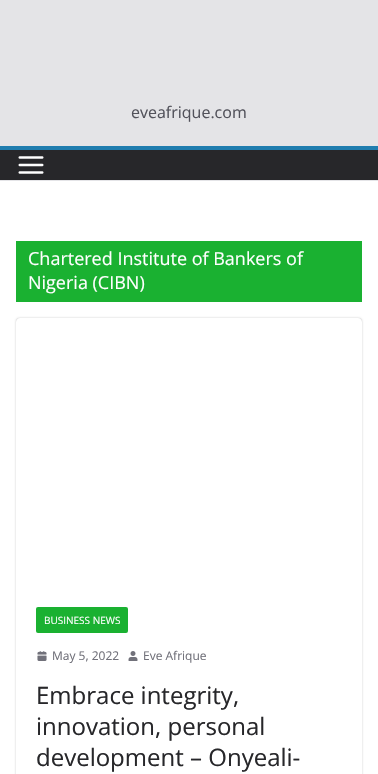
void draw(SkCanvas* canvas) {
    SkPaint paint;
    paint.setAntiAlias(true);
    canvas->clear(0xFFE4E4E7);
    SkFont font1(fontMgr->matchFamilyStyle("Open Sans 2", SkFontStyle::Normal()), 16);
    font1.setSubpixel(true);
    paint.setColor(0xFF52525B);
    canvas->drawString("eveafrique.com", 131, 118, font1, paint);
    paint.setColor(0xFF27272A);
    canvas->drawRect(SkRect::MakeXYWH(0, 150, 378, 30), paint);
    paint.setColor(0xFF207DAF);
    canvas->drawRect(SkRect::MakeXYWH(0, 146, 378, 4), paint);
    canvas->drawImageRect(SkImages::DeferredFromEncodedData(SkData::MakeFromFileName("img1.png")), SkRect::MakeXYWH(18, 156, 26, 18), SkSamplingOptions());
    paint.setColor(0xFFFFFFFF);
    canvas->drawRect(SkRect::MakeXYWH(0, 181, 378, 593), paint);
    paint.setColor(0xFF1AB131);
    canvas->drawRect(SkRect::MakeXYWH(16, 241, 346, 61), paint);
    SkFont font2(fontMgr->matchFamilyStyle("Open Sans", SkFontStyle::Normal()), 18);
    font2.setSubpixel(true);
    paint.setColor(0xFFFFFFFF);
    canvas->drawString("Chartered Institute of Bankers of", 28, 265, font2, paint);
    canvas->drawString("Nigeria (CIBN)", 28, 289, font2, paint);
    canvas->save();
    canvas->clipPath(SkPathBuilder(SkPathFillType::kEvenOdd).moveTo(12, 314).lineTo(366, 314).lineTo(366, 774).lineTo(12, 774).close().moveTo(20, 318).lineTo(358, 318).cubicTo(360, 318, 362, 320, 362, 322).lineTo(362, 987).cubicTo(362, 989, 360, 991, 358, 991).lineTo(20, 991).cubicTo(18, 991, 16, 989, 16, 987).lineTo(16, 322).cubicTo(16, 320, 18, 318, 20, 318).close().detach(), true);
    paint.setColor(0x3D000000);
    paint.setMaskFilter(SkMaskFilter::MakeBlur(kNormal_SkBlurStyle, 1));
    canvas->drawRoundRect(SkRect::MakeXYWH(16, 318, 346, 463), 4, 4, paint);
    paint.setMaskFilter(nullptr);
    canvas->restore();
    paint.setColor(0xFF1AB131);
    canvas->drawRoundRect(SkRect::MakeXYWH(36, 607, 92, 26), 2, 2, paint);
    SkFont font3(fontMgr->matchFamilyStyle("Open Sans 2", SkFontStyle::Normal()), 10);
    font3.setSubpixel(true);
    paint.setColor(0xFFFFFFFF);
    canvas->drawString("BUSINESS NEWS", 44, 624, font3, paint);
    canvas->drawImageRect(SkImages::DeferredFromEncodedData(SkData::MakeFromFileName("img2.png")), SkRect::MakeXYWH(37, 651, 10, 10), SkSamplingOptions());
    SkFont font4(fontMgr->matchFamilyStyle("Open Sans 2", SkFontStyle::Normal()), 12);
    font4.setSubpixel(true);
    paint.setColor(0xFF71717A);
    canvas->drawString("May 5, 2022", 52, 660, font4, paint);
    canvas->drawImageRect(SkImages::DeferredFromEncodedData(SkData::MakeFromFileName("img3.png")), SkRect::MakeXYWH(128, 651, 10, 10), SkSamplingOptions());
    canvas->drawString("Eve Afrique", 143, 660, font4, paint);
    SkFont font5(fontMgr->matchFamilyStyle("Open Sans", SkFontStyle::Normal()), 24);
    font5.setSubpixel(true);
    paint.setColor(0xFF27272A);
    canvas->drawString("Embrace integrity,", 36, 704, font5, paint);
    canvas->drawString("innovation, personal", 36, 735, font5, paint);
    canvas->drawString("development – Onyeali-", 36, 766, font5, paint);
}
